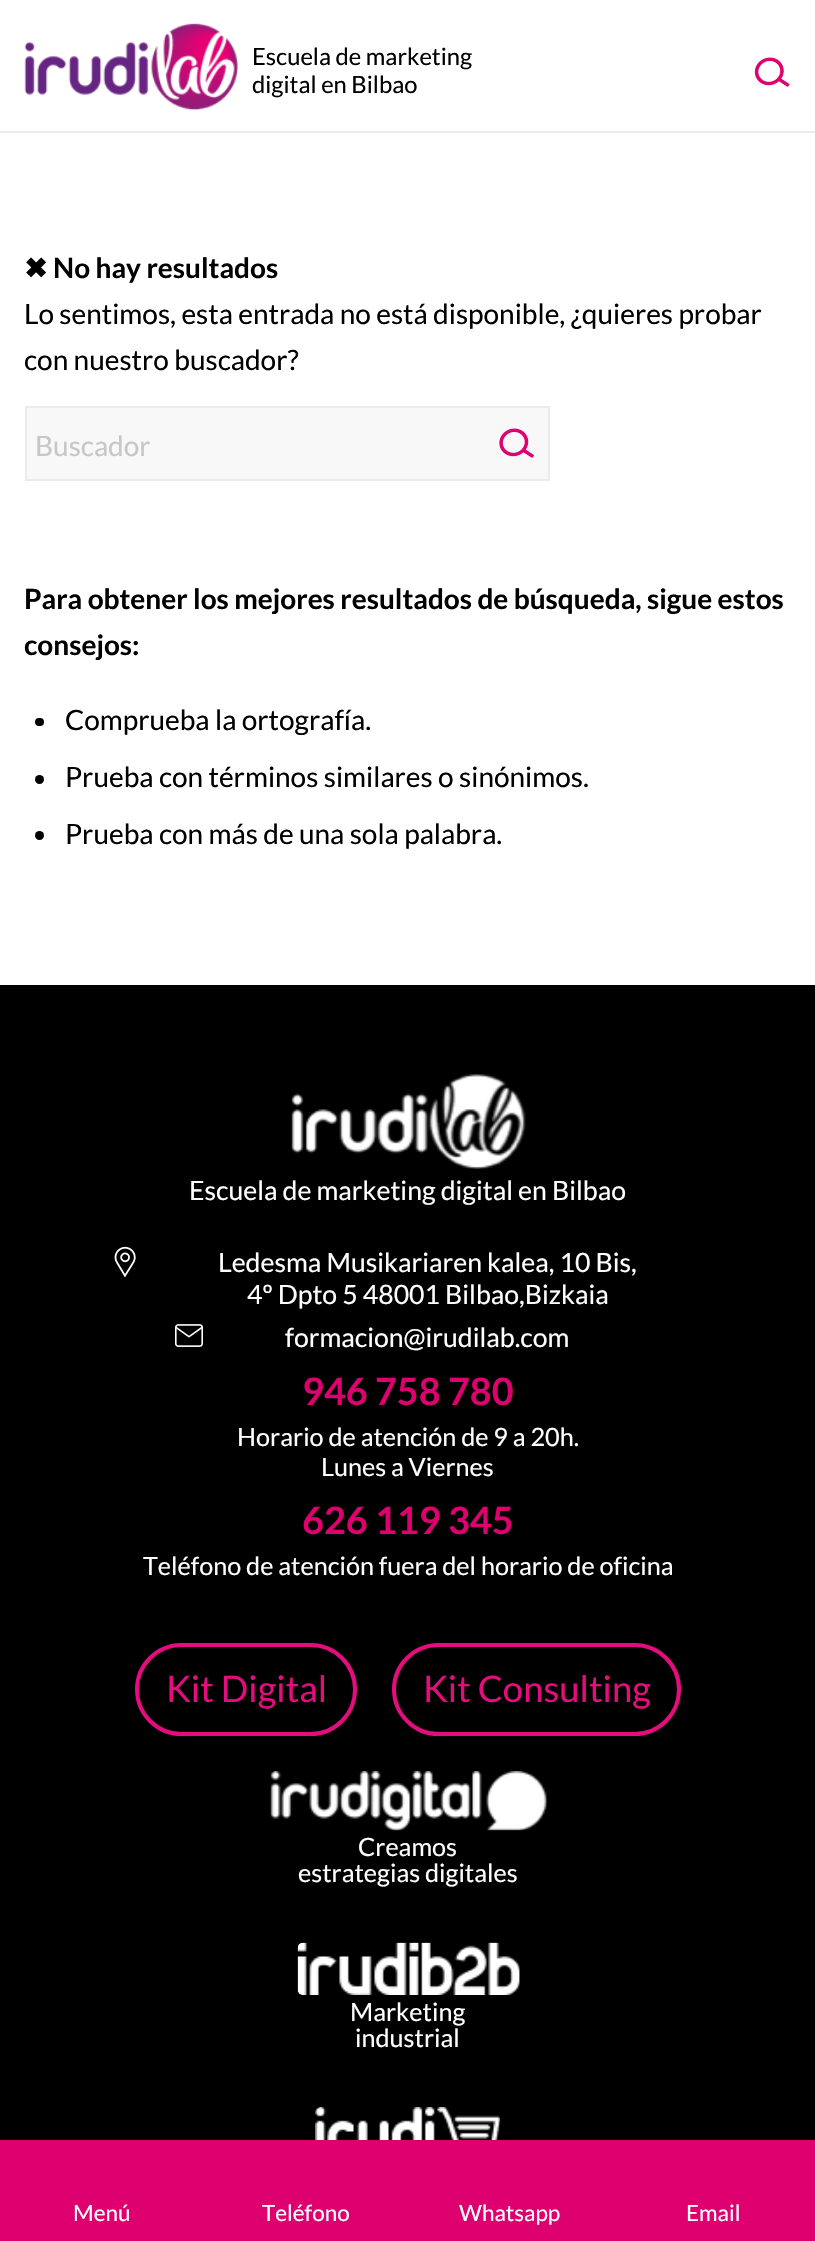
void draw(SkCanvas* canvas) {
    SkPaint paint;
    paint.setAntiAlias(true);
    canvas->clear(0xFFFFFFFF);
    paint.setColor(0xFFEBEBEB);
    canvas->drawRect(SkRect::MakeXYWH(0, 131, 815, 2), paint);
    canvas->drawImageRect(SkImages::DeferredFromEncodedData(SkData::MakeFromFileName("img1.png")), SkRect::MakeXYWH(24, 23, 214, 88), SkSamplingOptions());
    SkFont font1(fontMgr->matchFamilyStyle("Lato", SkFontStyle::Normal()), 23.75f);
    font1.setSubpixel(true);
    paint.setColor(0xFF000000);
    canvas->drawString("Escuela de marketing", 252, 65, font1, paint);
    canvas->drawString("digital en Bilbao", 252, 93, font1, paint);
    canvas->drawImageRect(SkImages::DeferredFromEncodedData(SkData::MakeFromFileName("img2.png")), SkRect::MakeXYWH(754, 57, 36, 30), SkSamplingOptions());
    SkFont font2(fontMgr->matchFamilyStyle("DejaVu Sans", SkFontStyle::Bold()), 28);
    font2.setSubpixel(true);
    canvas->drawString("✖", 24, 278, font2, paint);
    SkFont font3(fontMgr->matchFamilyStyle("Lato", SkFontStyle::Bold()), 28);
    font3.setSubpixel(true);
    canvas->drawString("No hay resultados", 53, 278, font3, paint);
    SkFont font4(fontMgr->matchFamilyStyle("Lato", SkFontStyle::Normal()), 28);
    font4.setSubpixel(true);
    canvas->drawString("Lo sentimos, esta entrada no está disponible, ¿quieres probar", 24, 324, font4, paint);
    canvas->drawString("con nuestro buscador?", 24, 370, font4, paint);
    paint.setColor(0xFFF8F8F8);
    canvas->drawRect(SkRect::MakeXYWH(26, 407, 523, 73), paint);
    paint.setStyle(SkPaint::kStroke_Style);
    paint.setStrokeWidth(2);
    paint.setColor(0xFFEBEBEB);
    canvas->drawRect(SkRect::MakeXYWH(26, 407, 523, 73), paint);
    paint.setStyle(SkPaint::kFill_Style);
    paint.setColor(0xFFC7C7C7);
    canvas->drawString("Buscador", 35, 456, font4, paint);
    canvas->drawImageRect(SkImages::DeferredFromEncodedData(SkData::MakeFromFileName("img3.png")), SkRect::MakeXYWH(499, 428, 35, 30), SkSamplingOptions());
    paint.setColor(0xFF000000);
    canvas->drawString("Para obtener los mejores resultados de búsqueda, sigue estos", 24, 609, font3, paint);
    canvas->drawString("consejos:", 24, 655, font3, paint);
    canvas->drawRoundRect(SkRect::MakeXYWH(35, 718, 9, 8), 4, 4, paint);
    canvas->drawString("Comprueba la ortografía.", 65, 730, font4, paint);
    canvas->drawCircle(39.5f, 779.5f, 4.5f, paint);
    canvas->drawString("Prueba con términos similares o sinónimos.", 65, 787, font4, paint);
    canvas->drawCircle(39.5f, 835.5f, 4.5f, paint);
    canvas->drawString("Prueba con más de una sola palabra.", 65, 844, font4, paint);
    canvas->drawRect(SkRect::MakeXYWH(0, 985, 815, 1155), paint);
    canvas->drawImageRect(SkImages::DeferredFromEncodedData(SkData::MakeFromFileName("img4.png")), SkRect::MakeXYWH(291, 1074, 235, 95), SkSamplingOptions());
    SkFont font5(fontMgr->matchFamilyStyle("Lato", SkFontStyle::Normal()), 26.6f);
    font5.setSubpixel(true);
    paint.setColor(0xFFFFFFFF);
    canvas->drawString("Escuela de marketing digital en Bilbao", 189, 1200, font5, paint);
    canvas->drawImageRect(SkImages::DeferredFromEncodedData(SkData::MakeFromFileName("img5.png")), SkRect::MakeXYWH(114, 1246, 22, 32), SkSamplingOptions());
    canvas->drawString("Ledesma Musikariaren kalea, 10 Bis,", 218, 1272, font5, paint);
    canvas->drawString("4º Dpto 5 48001 Bilbao,Bizkaia", 247, 1304, font5, paint);
    canvas->drawImageRect(SkImages::DeferredFromEncodedData(SkData::MakeFromFileName("img6.png")), SkRect::MakeXYWH(175, 1324, 28, 23), SkSamplingOptions());
    canvas->drawString("formacion@irudilab.com", 285, 1347, font5, paint);
    SkFont font6(fontMgr->matchFamilyStyle("Lato", SkFontStyle::Bold()), 37.75f);
    font6.setSubpixel(true);
    paint.setColor(0xFFDD006E);
    canvas->drawString("946 758 780", 302, 1405, font6, paint);
    SkFont font7(fontMgr->matchFamilyStyle("Lato", SkFontStyle::Normal()), 25.2f);
    font7.setSubpixel(true);
    paint.setColor(0xFFFFFFFF);
    canvas->drawString("Horario de atención de 9 a 20h.", 237, 1446, font7, paint);
    canvas->drawString("Lunes a Viernes", 321, 1476, font7, paint);
    paint.setColor(0xFFDD006E);
    canvas->drawString("626 119 345", 302, 1534, font6, paint);
    paint.setColor(0xFFFFFFFF);
    canvas->drawString("Teléfono de atención fuera del horario de oficina", 143, 1575, font7, paint);
    paint.setStyle(SkPaint::kStroke_Style);
    paint.setStrokeWidth(4);
    paint.setColor(0xFFE50C7E);
    canvas->drawRoundRect(SkRect::MakeXYWH(137, 1645, 218, 89), 44.5f, 44.5f, paint);
    SkFont font8(fontMgr->matchFamilyStyle("Lato", SkFontStyle::Normal()), 36.5f);
    font8.setSubpixel(true);
    paint.setStyle(SkPaint::kFill_Style);
    canvas->drawString("Kit Digital", 166, 1702, font8, paint);
    paint.setStyle(SkPaint::kStroke_Style);
    canvas->drawRoundRect(SkRect::MakeXYWH(394, 1645, 285, 89), 44.5f, 44.5f, paint);
    paint.setStyle(SkPaint::kFill_Style);
    canvas->drawString("Kit Consulting", 423, 1702, font8, paint);
    canvas->drawImageRect(SkImages::DeferredFromEncodedData(SkData::MakeFromFileName("img7.png")), SkRect::MakeXYWH(270, 1771, 278, 60), SkSamplingOptions());
    paint.setColor(0xFFFFFFFF);
    canvas->drawString("Creamos", 358, 1856, font7, paint);
    canvas->drawString("estrategias digitales", 298, 1882, font7, paint);
    canvas->drawImageRect(SkImages::DeferredFromEncodedData(SkData::MakeFromFileName("img8.png")), SkRect::MakeXYWH(297, 1942, 223, 53), SkSamplingOptions());
    canvas->drawString("Marketing", 350, 2021, font7, paint);
    canvas->drawString("industrial", 355, 2047, font7, paint);
    canvas->drawImageRect(SkImages::DeferredFromEncodedData(SkData::MakeFromFileName("img9.png")), SkRect::MakeXYWH(315, 2107, 186, 33), SkSamplingOptions());
    paint.setColor(0xFFDD006E);
    canvas->drawRect(SkRect::MakeXYWH(0, 2140, 815, 101), paint);
    SkFont font9(fontMgr->matchFamilyStyle("Lato", SkFontStyle::Normal()), 22.5f);
    font9.setSubpixel(true);
    paint.setColor(0xFFFFFFFF);
    canvas->drawString("Menú", 73, 2221, font9, paint);
    canvas->drawString("Teléfono", 262, 2221, font9, paint);
    canvas->drawString("Whatsapp", 459, 2221, font9, paint);
    canvas->drawString("Email", 686, 2221, font9, paint);
}
